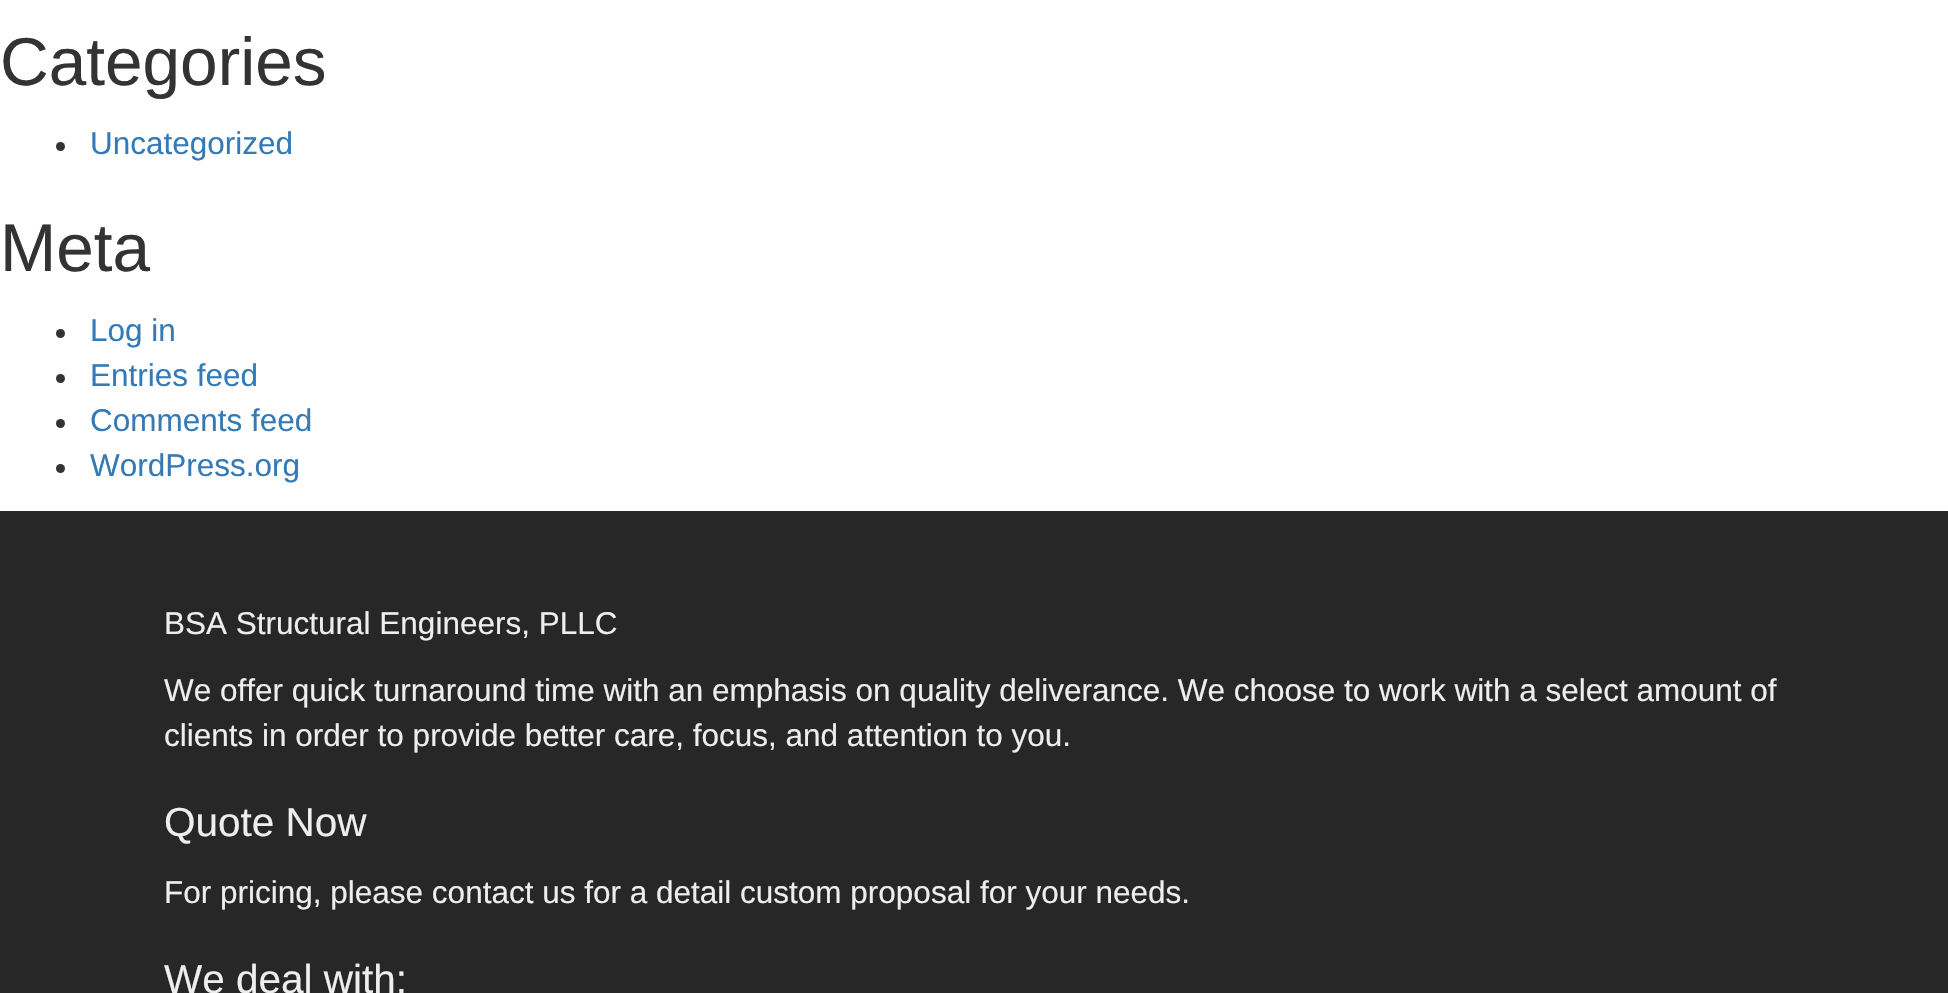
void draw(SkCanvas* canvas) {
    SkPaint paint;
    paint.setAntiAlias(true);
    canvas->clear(0xFFFFFFFF);
    SkFont font1(fontMgr->matchFamilyStyle("Liberation Sans", SkFontStyle::Normal()), 67.5f);
    font1.setSubpixel(true);
    paint.setColor(0xFF333333);
    canvas->drawString("Categories", 0, 85, font1, paint);
    canvas->drawCircle(60.5f, 146.5f, 4.5f, paint);
    SkFont font2(fontMgr->matchFamilyStyle("Liberation Sans", SkFontStyle::Normal()), 31.5f);
    font2.setSubpixel(true);
    paint.setColor(0xFF337AB7);
    canvas->drawString("Uncategorized", 90, 154, font2, paint);
    paint.setColor(0xFF333333);
    canvas->drawString("Meta", 0, 271, font1, paint);
    canvas->drawCircle(60.5f, 333.5f, 4.5f, paint);
    paint.setColor(0xFF337AB7);
    canvas->drawString("Log in", 90, 341, font2, paint);
    paint.setColor(0xFF333333);
    canvas->drawCircle(60.5f, 378.5f, 4.5f, paint);
    paint.setColor(0xFF337AB7);
    canvas->drawString("Entries feed", 90, 386, font2, paint);
    paint.setColor(0xFF333333);
    canvas->drawCircle(60.5f, 423.5f, 4.5f, paint);
    paint.setColor(0xFF337AB7);
    canvas->drawString("Comments feed", 90, 431, font2, paint);
    paint.setColor(0xFF333333);
    canvas->drawCircle(60.5f, 468.5f, 4.5f, paint);
    paint.setColor(0xFF337AB7);
    canvas->drawString("WordPress.org", 90, 476, font2, paint);
    paint.setColor(0xFF272727);
    canvas->drawRect(SkRect::MakeXYWH(0, 511, 1948, 482), paint);
    paint.setColor(0xFFEEEEEE);
    canvas->drawString("BSA Structural Engineers, PLLC", 164, 634, font2, paint);
    canvas->drawString("We offer quick turnaround time with an emphasis on quality deliverance. We choose to work with a select amount of", 164, 701, font2, paint);
    canvas->drawString("clients in order to provide better care, focus, and attention to you.", 164, 746, font2, paint);
    SkFont font3(fontMgr->matchFamilyStyle("Liberation Sans", SkFontStyle::Normal()), 40.5f);
    font3.setSubpixel(true);
    canvas->drawString("Quote Now", 164, 836, font3, paint);
    canvas->drawString("For pricing, please contact us for a detail custom proposal for your needs.", 164, 903, font2, paint);
    canvas->drawString("We deal with:", 164, 993, font3, paint);
}
